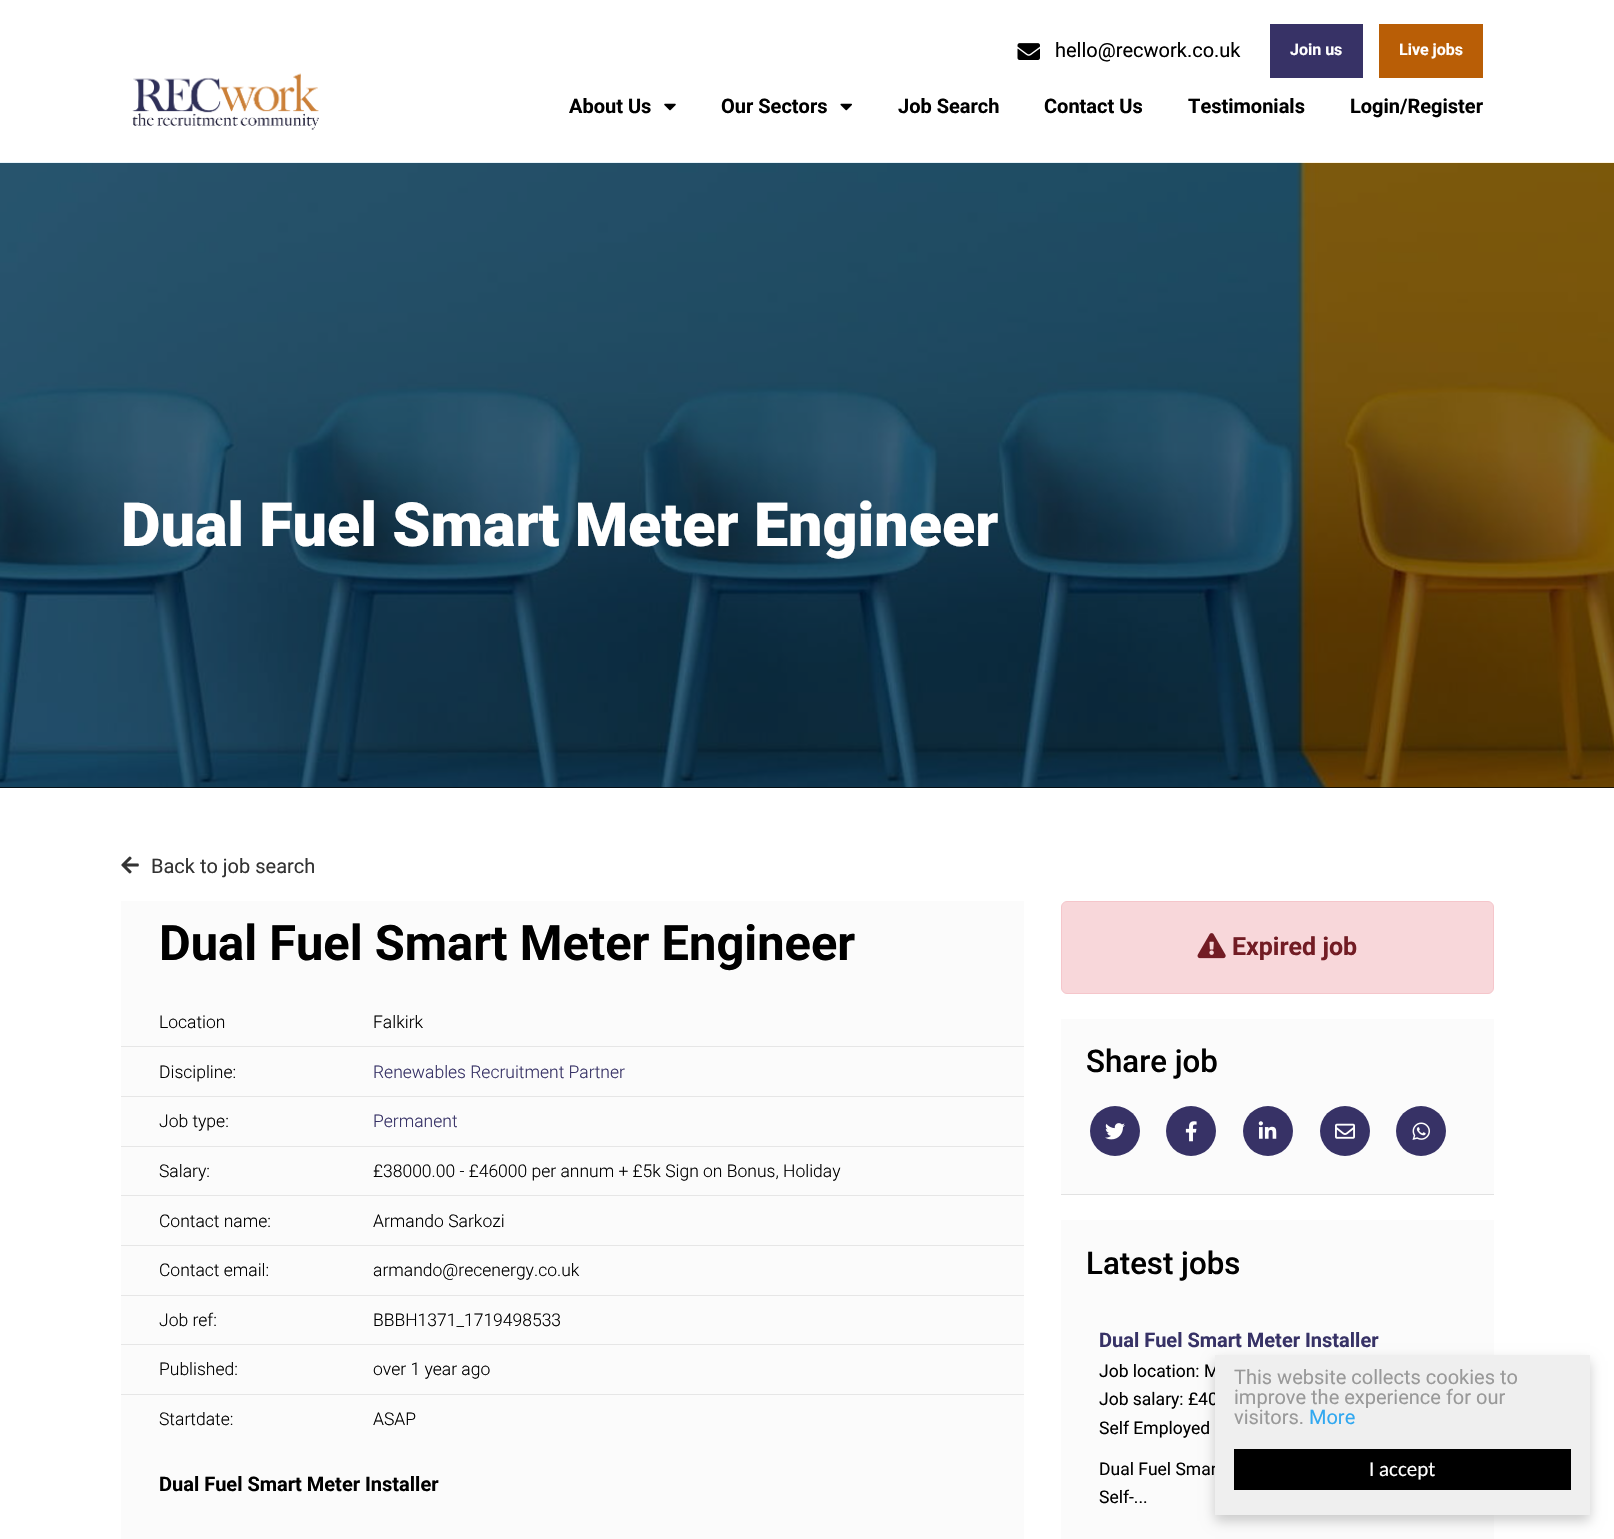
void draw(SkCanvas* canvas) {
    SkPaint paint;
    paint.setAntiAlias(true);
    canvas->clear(0xFFFFFFFF);
    canvas->drawImageRect(SkImages::DeferredFromEncodedData(SkData::MakeFromFileName("img1.png")), SkRect::MakeXYWH(1017, 43, 23, 17), SkSamplingOptions());
    SkFont font1(fontMgr->matchFamilyStyle("Roboto", SkFontStyle::Normal()), 20);
    font1.setSubpixel(true);
    paint.setColor(0xFF000000);
    canvas->drawString("hello@recwork.co.uk", 1055, 57, font1, paint);
    paint.setColor(0xFF373266);
    canvas->drawRect(SkRect::MakeXYWH(1270, 24, 93, 54), paint);
    SkFont font2(fontMgr->matchFamilyStyle("Roboto", SkFontStyle::Bold()), 16);
    font2.setSubpixel(true);
    paint.setColor(0xFFFFFFFF);
    canvas->drawString("Join us", 1290, 55, font2, paint);
    paint.setColor(0xFFB95E06);
    canvas->drawRect(SkRect::MakeXYWH(1379, 24, 104, 54), paint);
    paint.setColor(0xFFFFFFFF);
    canvas->drawString("Live jobs", 1399, 55, font2, paint);
    canvas->drawImageRect(SkImages::DeferredFromEncodedData(SkData::MakeFromFileName("img2.png")), SkRect::MakeXYWH(132, 73, 187, 57), SkSamplingOptions());
    SkFont font3(fontMgr->matchFamilyStyle("Roboto", SkFontStyle::Bold()), 20);
    font3.setSubpixel(true);
    paint.setColor(0xFF000000);
    canvas->drawString("About Us", 569, 113, font3, paint);
    canvas->drawImageRect(SkImages::DeferredFromEncodedData(SkData::MakeFromFileName("img3.png")), SkRect::MakeXYWH(664, 103, 12, 8), SkSamplingOptions());
    canvas->drawString("Our Sectors", 721, 113, font3, paint);
    canvas->drawImageRect(SkImages::DeferredFromEncodedData(SkData::MakeFromFileName("img4.png")), SkRect::MakeXYWH(840, 103, 12, 8), SkSamplingOptions());
    canvas->drawString("Job Search", 898, 113, font3, paint);
    canvas->drawString("Contact Us", 1044, 113, font3, paint);
    canvas->drawString("Testimonials", 1188, 113, font3, paint);
    canvas->drawString("Login/Register", 1350, 113, font3, paint);
    canvas->drawRect(SkRect::MakeXYWH(0, 163, 1614, 625), paint);
    canvas->drawImageRect(SkImages::DeferredFromEncodedData(SkData::MakeFromFileName("img5.png")), SkRect::MakeXYWH(0, 162, 1614, 626), SkSamplingOptions());
    SkFont font4(fontMgr->matchFamilyStyle("Roboto", SkFontStyle(900, SkFontStyle::kNormal_Width, SkFontStyle::kUpright_Slant)), 61);
    font4.setSubpixel(true);
    paint.setColor(0xFFFFFFFF);
    canvas->drawString("Dual Fuel Smart Meter Engineer", 121, 546, font4, paint);
    canvas->drawImageRect(SkImages::DeferredFromEncodedData(SkData::MakeFromFileName("img6.png")), SkRect::MakeXYWH(121, 856, 18, 18), SkSamplingOptions());
    paint.setColor(0xFF333333);
    canvas->drawString("Back to job search", 151, 873, font1, paint);
    paint.setColor(0xFFFBFBFB);
    canvas->drawRect(SkRect::MakeXYWH(121, 901, 903, 638), paint);
    SkFont font5(fontMgr->matchFamilyStyle("Roboto", SkFontStyle::Bold()), 48.8f);
    font5.setSubpixel(true);
    paint.setColor(0xFF000000);
    canvas->drawString("Dual Fuel Smart Meter Engineer", 159, 960, font5, paint);
    paint.setColor(0xFFE6E6E6);
    canvas->drawRect(SkRect::MakeXYWH(121, 1046, 903, 1), paint);
    SkFont font6(fontMgr->matchFamilyStyle("Roboto", SkFontStyle(300, SkFontStyle::kNormal_Width, SkFontStyle::kUpright_Slant)), 17.5f);
    font6.setSubpixel(true);
    paint.setColor(0xFF000000);
    canvas->drawString("Location", 159, 1028, font6, paint);
    canvas->drawString("Falkirk", 373, 1028, font6, paint);
    paint.setColor(0xFFE6E6E6);
    canvas->drawRect(SkRect::MakeXYWH(121, 1096, 903, 1), paint);
    paint.setColor(0xFF000000);
    canvas->drawString("Discipline:", 159, 1078, font6, paint);
    paint.setColor(0xFF373266);
    canvas->drawString("Renewables Recruitment Partner", 373, 1078, font6, paint);
    paint.setColor(0xFFE6E6E6);
    canvas->drawRect(SkRect::MakeXYWH(121, 1146, 903, 1), paint);
    paint.setColor(0xFF000000);
    canvas->drawString("Job type:", 159, 1127, font6, paint);
    paint.setColor(0xFF373266);
    canvas->drawString("Permanent", 373, 1127, font6, paint);
    paint.setColor(0xFFE6E6E6);
    canvas->drawRect(SkRect::MakeXYWH(121, 1195, 903, 1), paint);
    paint.setColor(0xFF000000);
    canvas->drawString("Salary:", 159, 1177, font6, paint);
    canvas->drawString("£38000.00 - £46000 per annum + £5k Sign on Bonus, Holiday", 373, 1177, font6, paint);
    paint.setColor(0xFFE6E6E6);
    canvas->drawRect(SkRect::MakeXYWH(121, 1245, 903, 1), paint);
    paint.setColor(0xFF000000);
    canvas->drawString("Contact name:", 159, 1227, font6, paint);
    canvas->drawString("Armando Sarkozi", 373, 1227, font6, paint);
    paint.setColor(0xFFE6E6E6);
    canvas->drawRect(SkRect::MakeXYWH(121, 1295, 903, 1), paint);
    paint.setColor(0xFF000000);
    canvas->drawString("Contact email:", 159, 1276, font6, paint);
    canvas->drawString("armando@recenergy.co.uk", 373, 1276, font6, paint);
    paint.setColor(0xFFE6E6E6);
    canvas->drawRect(SkRect::MakeXYWH(121, 1344, 903, 1), paint);
    paint.setColor(0xFF000000);
    canvas->drawString("Job ref:", 159, 1326, font6, paint);
    canvas->drawString("BBBH1371_1719498533", 373, 1326, font6, paint);
    paint.setColor(0xFFE6E6E6);
    canvas->drawRect(SkRect::MakeXYWH(121, 1394, 903, 1), paint);
    paint.setColor(0xFF000000);
    canvas->drawString("Published:", 159, 1375, font6, paint);
    canvas->drawString("over 1 year ago", 373, 1375, font6, paint);
    canvas->drawString("Startdate:", 159, 1425, font6, paint);
    canvas->drawString("ASAP", 373, 1425, font6, paint);
    canvas->drawString("Dual Fuel Smart Meter Installer", 159, 1491, font3, paint);
    paint.setColor(0xFFF8D7DA);
    canvas->drawRoundRect(SkRect::MakeXYWH(1061.5f, 901.5f, 432, 92), 5.5f, 5.5f, paint);
    paint.setStyle(SkPaint::kStroke_Style);
    paint.setStrokeWidth(1);
    paint.setColor(0xFFF5C6CB);
    canvas->drawRoundRect(SkRect::MakeXYWH(1061.5f, 901.5f, 432, 92), 5.5f, 5.5f, paint);
    canvas->drawImageRect(SkImages::DeferredFromEncodedData(SkData::MakeFromFileName("img7.png")), SkRect::MakeXYWH(1197, 933, 29, 26), SkSamplingOptions());
    SkFont font7(fontMgr->matchFamilyStyle("Roboto", SkFontStyle::Bold()), 25);
    font7.setSubpixel(true);
    paint.setStyle(SkPaint::kFill_Style);
    paint.setColor(0xFF721C24);
    canvas->drawString("Expired job", 1232, 955, font7, paint);
    paint.setColor(0xFFFBFBFB);
    canvas->drawRect(SkRect::MakeXYWH(1061, 1019, 433, 175), paint);
    paint.setColor(0xFFE2E2E2);
    canvas->drawRect(SkRect::MakeXYWH(1061, 1194, 433, 1), paint);
    SkFont font8(fontMgr->matchFamilyStyle("Roboto", SkFontStyle(500, SkFontStyle::kNormal_Width, SkFontStyle::kUpright_Slant)), 31.25f);
    font8.setSubpixel(true);
    paint.setColor(0xFF000000);
    canvas->drawString("Share job", 1086, 1072, font8, paint);
    paint.setColor(0xFF373266);
    canvas->drawCircle(1115, 1131, 25, paint);
    canvas->drawImageRect(SkImages::DeferredFromEncodedData(SkData::MakeFromFileName("img8.png")), SkRect::MakeXYWH(1105, 1123, 20, 17), SkSamplingOptions());
    canvas->drawCircle(1191, 1131, 25, paint);
    canvas->drawImageRect(SkImages::DeferredFromEncodedData(SkData::MakeFromFileName("img9.png")), SkRect::MakeXYWH(1185, 1121, 12, 21), SkSamplingOptions());
    canvas->drawCircle(1268, 1131, 25, paint);
    canvas->drawImageRect(SkImages::DeferredFromEncodedData(SkData::MakeFromFileName("img10.png")), SkRect::MakeXYWH(1258, 1121, 19, 18), SkSamplingOptions());
    canvas->drawCircle(1345, 1131, 25, paint);
    canvas->drawImageRect(SkImages::DeferredFromEncodedData(SkData::MakeFromFileName("img11.png")), SkRect::MakeXYWH(1335, 1123, 20, 16), SkSamplingOptions());
    canvas->drawCircle(1421, 1131, 25, paint);
    canvas->drawImageRect(SkImages::DeferredFromEncodedData(SkData::MakeFromFileName("img12.png")), SkRect::MakeXYWH(1412, 1122, 18, 18), SkSamplingOptions());
    paint.setColor(0xFFFBFBFB);
    canvas->drawRect(SkRect::MakeXYWH(1061, 1220, 433, 319), paint);
    paint.setColor(0xFF000000);
    canvas->drawString("Latest jobs", 1086, 1274, font8, paint);
    paint.setColor(0xFF373266);
    canvas->drawString("Dual Fuel Smart Meter Installer", 1099, 1347, font3, paint);
    SkFont font9(fontMgr->matchFamilyStyle("Roboto", SkFontStyle::Normal()), 17.5f);
    font9.setSubpixel(true);
    paint.setColor(0xFF000000);
    canvas->drawString("Job location: M", 1099, 1377, font9, paint);
    canvas->drawString("Job salary: £40", 1099, 1405, font9, paint);
    canvas->drawString("Self Employed", 1099, 1434, font9, paint);
    canvas->drawString("Dual Fuel Smar", 1099, 1475, font9, paint);
    canvas->drawString("Self-...", 1099, 1503, font9, paint);
    paint.setColor(0x33000000);
    paint.setMaskFilter(SkMaskFilter::MakeBlur(kNormal_SkBlurStyle, 6));
    canvas->drawRect(SkRect::MakeXYWH(1215, 1361, 375, 160), paint);
    paint.setMaskFilter(nullptr);
    paint.setColor(0xFFEFEFEF);
    canvas->drawRect(SkRect::MakeXYWH(1215, 1355, 375, 160), paint);
    paint.setColor(0xFF999999);
    canvas->drawString("This website collects cookies to", 1234, 1384, font1, paint);
    canvas->drawString("improve the experience for our", 1234, 1404, font1, paint);
    canvas->drawString("visitors.", 1234, 1424, font1, paint);
    paint.setColor(0xFF31A8F0);
    canvas->drawString("More", 1309, 1424, font1, paint);
    paint.setColor(0xFF000000);
    canvas->drawRect(SkRect::MakeXYWH(1234, 1449, 337, 41), paint);
    SkFont font10(fontMgr->matchFamilyStyle("Carlito", SkFontStyle::Normal()), 21);
    font10.setSubpixel(true);
    paint.setColor(0xFFFFFFFF);
    canvas->drawString("I accept", 1369, 1476, font10, paint);
}
